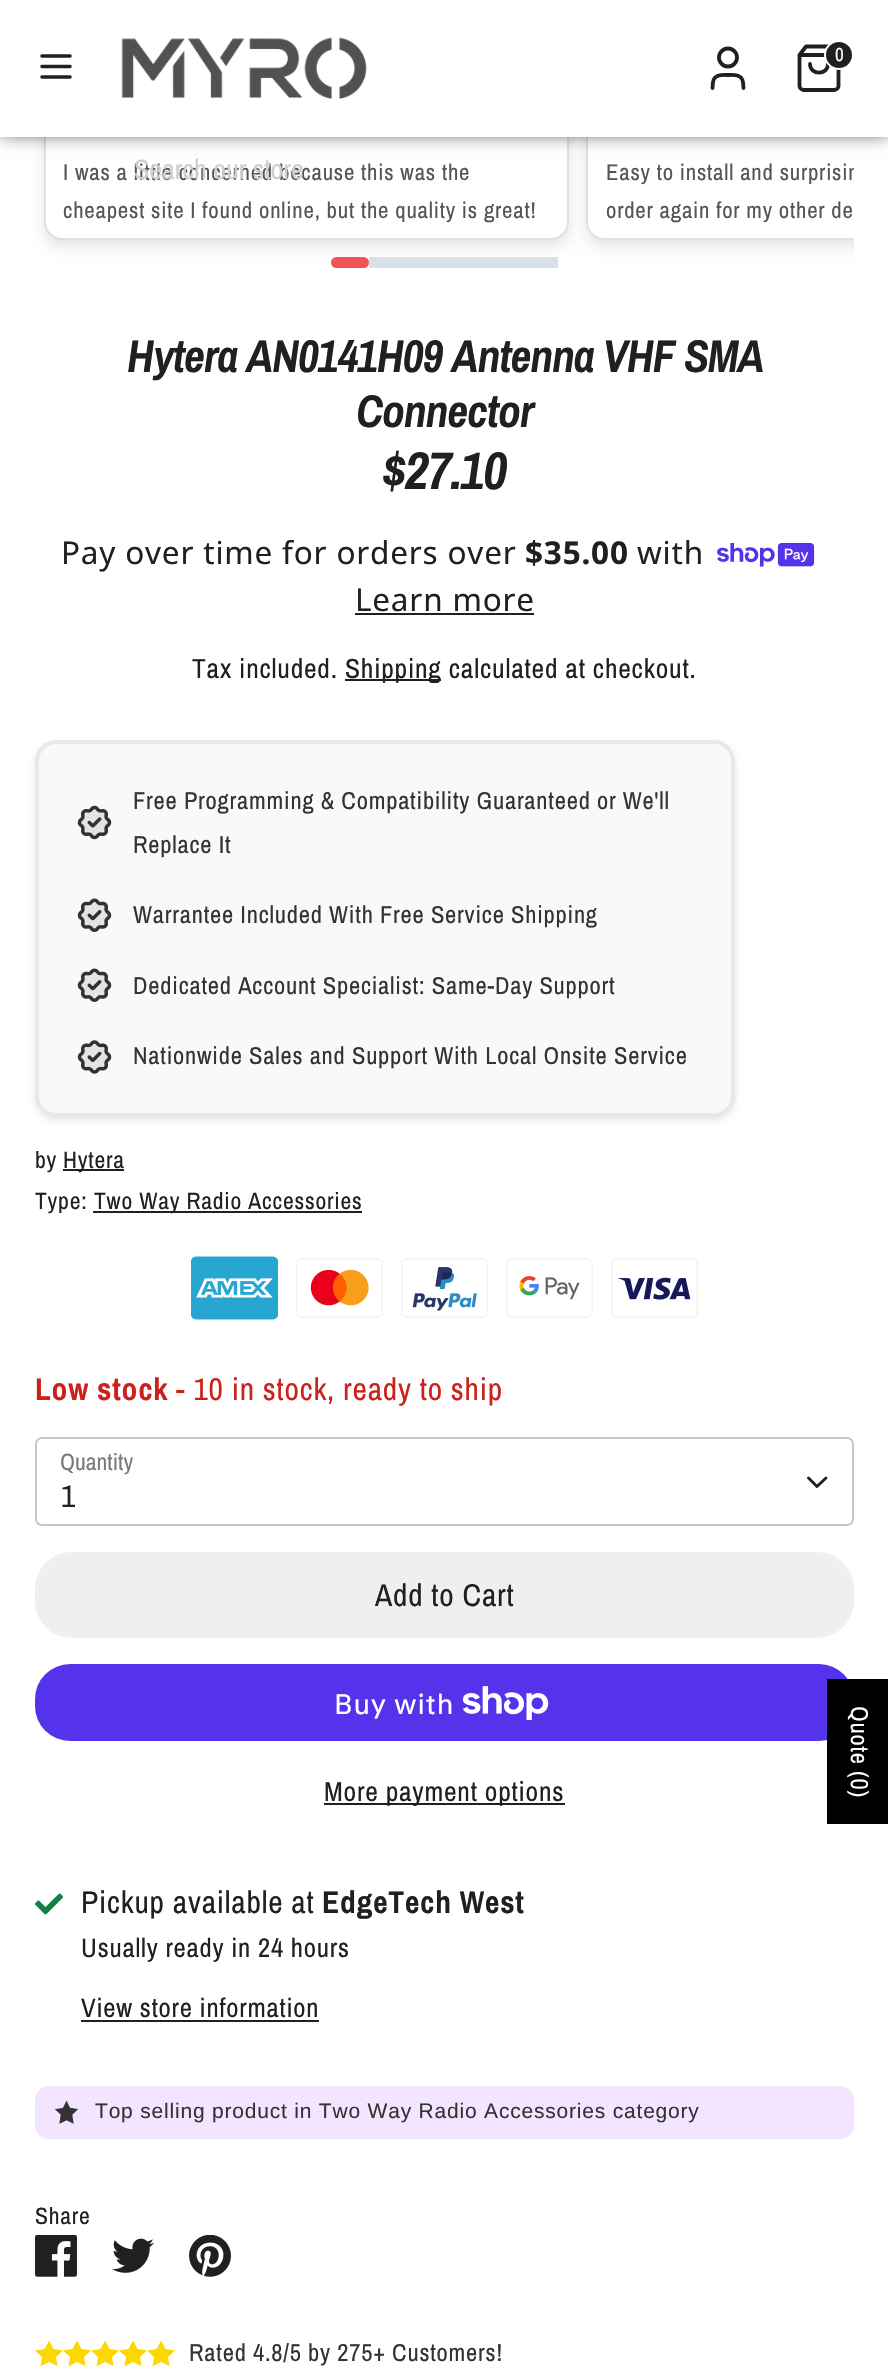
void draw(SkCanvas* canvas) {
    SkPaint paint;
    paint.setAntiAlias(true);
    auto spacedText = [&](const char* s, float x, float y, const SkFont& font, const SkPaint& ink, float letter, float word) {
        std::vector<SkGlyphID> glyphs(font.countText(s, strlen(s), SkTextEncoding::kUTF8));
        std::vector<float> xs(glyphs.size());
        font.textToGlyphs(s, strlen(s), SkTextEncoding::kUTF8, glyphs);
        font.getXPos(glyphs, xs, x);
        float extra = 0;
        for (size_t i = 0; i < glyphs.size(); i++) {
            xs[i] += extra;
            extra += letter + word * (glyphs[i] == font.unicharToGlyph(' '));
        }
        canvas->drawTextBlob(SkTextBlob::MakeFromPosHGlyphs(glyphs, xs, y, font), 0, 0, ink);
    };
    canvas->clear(0xFFFFFFFF);
    paint.setColor(0x1A000000);
    paint.setMaskFilter(SkMaskFilter::MakeBlur(kNormal_SkBlurStyle, 7));
    canvas->drawRoundRect(SkRect::MakeXYWH(44, -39, 525, 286), 18, 18, paint);
    paint.setMaskFilter(nullptr);
    paint.setColor(0xFFFFFFFF);
    canvas->drawRoundRect(SkRect::MakeXYWH(45, -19, 523, 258), 17, 17, paint);
    paint.setStyle(SkPaint::kStroke_Style);
    paint.setStrokeWidth(2);
    paint.setColor(0xFFE0E0E0);
    canvas->drawRoundRect(SkRect::MakeXYWH(45, -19, 523, 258), 17, 17, paint);
    canvas->save();
    canvas->clipRect(SkRect::MakeXYWH(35, 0, 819, 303));
    paint.setStyle(SkPaint::kFill_Style);
    paint.setColor(0x1A000000);
    paint.setMaskFilter(SkMaskFilter::MakeBlur(kNormal_SkBlurStyle, 7));
    canvas->drawRoundRect(SkRect::MakeXYWH(586, -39, 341, 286), 18, 18, paint);
    paint.setMaskFilter(nullptr);
    canvas->restore();
    paint.setColor(0xFFFFFFFF);
    canvas->drawPath(SkPathBuilder().moveTo(604, -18).lineTo(854, -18).lineTo(854, 240).lineTo(604, 240).cubicTo(594, 240, 586, 232, 586, 222).lineTo(586, 0).cubicTo(586, -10, 594, -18, 604, -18).close().detach(), paint);
    canvas->save();
    canvas->clipRect(SkRect::MakeXYWH(35, 0, 819, 303));
    paint.setStyle(SkPaint::kStroke_Style);
    paint.setColor(0xFFE0E0E0);
    canvas->drawRoundRect(SkRect::MakeXYWH(587, -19, 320, 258), 17, 17, paint);
    canvas->restore();
    paint.setStyle(SkPaint::kFill_Style);
    paint.setColor(0xBF000000);
    paint.setMaskFilter(SkMaskFilter::MakeBlur(kNormal_SkBlurStyle, 9));
    canvas->drawRect(SkRect::MakeXYWH(0, -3, 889, 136), paint);
    paint.setMaskFilter(nullptr);
    paint.setColor(0xFFFFFFFF);
    canvas->drawRect(SkRect::MakeXYWH(0, 0, 888, 137), paint);
    paint.setStyle(SkPaint::kStroke_Style);
    paint.setStrokeWidth(3.5f);
    paint.setStrokeCap(SkPaint::kRound_Cap);
    paint.setStrokeJoin(SkPaint::kRound_Join);
    paint.setColor(0xFF202020);
    canvas->drawPath(SkPathBuilder().moveTo(42, 66.5f).lineTo(70, 66.5f).moveTo(42, 56).lineTo(70, 56).moveTo(42, 77).lineTo(70, 77).detach(), paint);
    canvas->drawImageRect(SkImages::DeferredFromEncodedData(SkData::MakeFromFileName("img1.png")), SkRect::MakeXYWH(121, 37, 246, 62), SkSamplingOptions());
    paint.setStrokeWidth(3.8f);
    canvas->drawPath(SkPathBuilder().moveTo(743.5f, 88).lineTo(743, 82).cubicTo(741.5f, 74, 734, 75, 728, 75).cubicTo(722, 75, 714.5f, 74, 713, 82).lineTo(712.5f, 88).detach(), paint);
    paint.setStrokeCap(SkPaint::kButt_Cap);
    paint.setStrokeJoin(SkPaint::kMiter_Join);
    canvas->drawCircle(728, 57.5f, 9, paint);
    paint.setStrokeCap(SkPaint::kRound_Cap);
    paint.setStrokeJoin(SkPaint::kRound_Join);
    canvas->drawPath(SkPathBuilder().moveTo(806, 46.5f).lineTo(799.5f, 55).lineTo(799.5f, 86).cubicTo(799.5f, 88, 801.5f, 90, 803.5f, 90).lineTo(834.5f, 90).cubicTo(836.5f, 90, 838.5f, 88, 838.5f, 86).lineTo(838.5f, 55).lineTo(832, 46.5f).close().moveTo(799.5f, 55).lineTo(838.5f, 55).moveTo(828, 64).cubicTo(828, 75.5f, 810, 75.5f, 810, 64).detach(), paint);
    paint.setStyle(SkPaint::kFill_Style);
    canvas->drawCircle(839, 55, 14, paint);
    paint.setStyle(SkPaint::kStroke_Style);
    paint.setStrokeWidth(2);
    paint.setStrokeCap(SkPaint::kButt_Cap);
    paint.setStrokeJoin(SkPaint::kMiter_Join);
    paint.setColor(0xFFFFFFFF);
    canvas->drawCircle(839, 55, 14, paint);
    SkFont font1(fontMgr->matchFamilyStyle("Archivo Narrow", SkFontStyle::Normal()), 19);
    font1.setSubpixel(true);
    paint.setStyle(SkPaint::kFill_Style);
    canvas->drawString("0", 835, 61, font1, paint);
    SkFont font2(fontMgr->matchFamilyStyle("Archivo Narrow", SkFontStyle::Normal()), 22.75f);
    font2.setSubpixel(true);
    paint.setColor(0xFF555555);
    spacedText("I was a little concerned because this was the", 63, 180, font2, paint, 0.8f, 0);
    SkFont font3(fontMgr->matchFamilyStyle("Archivo Narrow", SkFontStyle::Normal()), 28);
    font3.setSubpixel(true);
    paint.setColor(0xFFCFCFCF);
    canvas->drawString("Search our store", 134, 179, font3, paint);
    paint.setColor(0xFF555555);
    spacedText("cheapest site I found online, but the quality is great!", 63, 218, font2, paint, 0.8f, 0);
    canvas->save();
    canvas->clipRect(SkRect::MakeXYWH(35, 0, 819, 303));
    spacedText("Easy to install and surprisin", 606, 180, font2, paint, 0.8f, 0);
    canvas->restore();
    spacedText("order again for my other de", 606, 218, font2, paint, 0.8f, 0);
    paint.setColor(0xFFF05454);
    canvas->drawRoundRect(SkRect::MakeXYWH(331, 257, 38, 11), 5.5f, 5.5f, paint);
    paint.setColor(0xFFD8E0EA);
    canvas->drawRect(SkRect::MakeXYWH(369, 257, 189, 11), paint);
    SkFont font4(fontMgr->matchFamilyStyle("Archivo Narrow", SkFontStyle::BoldItalic()), 45.75f);
    font4.setSubpixel(true);
    paint.setColor(0xFF202020);
    spacedText("Hytera AN0141H09 Antenna VHF SMA", 127, 372, font4, paint, -1.15f, 0);
    spacedText("Connector", 356, 427, font4, paint, -1.15f, 0);
    SkFont font5(fontMgr->matchFamilyStyle("Archivo Narrow", SkFontStyle::BoldItalic()), 53);
    font5.setSubpixel(true);
    spacedText("$27.10", 382, 489, font5, paint, -1.5f, 0);
    SkFont font6(fontMgr->matchFamilyStyle("Noto Sans", SkFontStyle::Normal()), 31.5f);
    font6.setSubpixel(true);
    spacedText("Pay over time for orders over", 61, 564, font6, paint, 0.8f, 0);
    SkFont font7(fontMgr->matchFamilyStyle("Noto Sans", SkFontStyle::Bold()), 31.5f);
    font7.setSubpixel(true);
    spacedText("$35.00", 525, 564, font7, paint, 0.8f, 0);
    spacedText("with", 637, 564, font6, paint, 0.8f, 0);
    canvas->drawImageRect(SkImages::DeferredFromEncodedData(SkData::MakeFromFileName("img2.png")), SkRect::MakeXYWH(717, 543, 98, 24), SkSamplingOptions());
    spacedText("Learn more", 355, 611, font6, paint, 0.8f, 0);
    canvas->drawRect(SkRect::MakeXYWH(355, 613, 179, 2), paint);
    SkFont font8(fontMgr->matchFamilyStyle("Archivo Narrow", SkFontStyle::Normal()), 27.5f);
    font8.setSubpixel(true);
    spacedText("Tax included.", 192, 678, font8, paint, 0.8f, 0);
    canvas->drawRect(SkRect::MakeXYWH(345, 679, 96, 2), paint);
    spacedText("Shipping calculated at checkout.", 345, 678, font8, paint, 0.8f, 0);
    paint.setColor(0x1A000000);
    paint.setMaskFilter(SkMaskFilter::MakeBlur(kNormal_SkBlurStyle, 3.5f));
    canvas->drawRoundRect(SkRect::MakeXYWH(35, 744, 700, 376), 21, 21, paint);
    paint.setMaskFilter(nullptr);
    paint.setColor(0xFFF8F9FA);
    canvas->drawRoundRect(SkRect::MakeXYWH(37, 742, 696, 373), 19, 19, paint);
    paint.setStyle(SkPaint::kStroke_Style);
    paint.setStrokeWidth(4);
    paint.setColor(0xFFE8E8E8);
    canvas->drawRoundRect(SkRect::MakeXYWH(37, 742, 696, 373), 19, 19, paint);
    canvas->drawImageRect(SkImages::DeferredFromEncodedData(SkData::MakeFromFileName("img3.png")), SkRect::MakeXYWH(77, 805, 35, 35), SkSamplingOptions());
    SkFont font9(fontMgr->matchFamilyStyle("Archivo Narrow", SkFontStyle::Normal()), 24.5f);
    font9.setSubpixel(true);
    paint.setStyle(SkPaint::kFill_Style);
    paint.setColor(0xFF333333);
    spacedText("Free Programming & Compatibility Guaranteed or We'll", 133, 809, font9, paint, 0.8f, 0);
    spacedText("Replace It", 133, 853, font9, paint, 0.8f, 0);
    canvas->drawImageRect(SkImages::DeferredFromEncodedData(SkData::MakeFromFileName("img4.png")), SkRect::MakeXYWH(77, 898, 35, 34), SkSamplingOptions());
    spacedText("Warrantee Included With Free Service Shipping", 133, 923, font9, paint, 0.8f, 0);
    canvas->drawImageRect(SkImages::DeferredFromEncodedData(SkData::MakeFromFileName("img4.png")), SkRect::MakeXYWH(77, 968, 35, 34), SkSamplingOptions());
    spacedText("Dedicated Account Specialist: Same-Day Support", 133, 994, font9, paint, 0.8f, 0);
    canvas->drawImageRect(SkImages::DeferredFromEncodedData(SkData::MakeFromFileName("img5.png")), SkRect::MakeXYWH(77, 1040, 35, 34), SkSamplingOptions());
    spacedText("Nationwide Sales and Support With Local Onsite Service", 133, 1064, font9, paint, 0.8f, 0);
    SkFont font10(fontMgr->matchFamilyStyle("Archivo Narrow", SkFontStyle::Normal()), 23.6f);
    font10.setSubpixel(true);
    paint.setColor(0xFF202020);
    spacedText("by", 35, 1168, font10, paint, 0.8f, 0);
    canvas->drawRect(SkRect::MakeXYWH(63, 1169, 61, 2), paint);
    spacedText("Hytera", 63, 1168, font10, paint, 0.8f, 0);
    spacedText("Type:", 35, 1209, font10, paint, 0.8f, 0);
    canvas->drawRect(SkRect::MakeXYWH(93, 1211, 269, 2), paint);
    spacedText("Two Way Radio Accessories", 94, 1209, font10, paint, 0.8f, 0);
    canvas->drawImageRect(SkImages::DeferredFromEncodedData(SkData::MakeFromFileName("img6.png")), SkRect::MakeXYWH(191, 1256, 87, 64), SkSamplingOptions());
    canvas->drawImageRect(SkImages::DeferredFromEncodedData(SkData::MakeFromFileName("img7.png")), SkRect::MakeXYWH(296, 1258, 87, 60), SkSamplingOptions());
    canvas->drawImageRect(SkImages::DeferredFromEncodedData(SkData::MakeFromFileName("img8.png")), SkRect::MakeXYWH(401, 1258, 87, 60), SkSamplingOptions());
    canvas->drawImageRect(SkImages::DeferredFromEncodedData(SkData::MakeFromFileName("img9.png")), SkRect::MakeXYWH(506, 1258, 87, 60), SkSamplingOptions());
    canvas->drawImageRect(SkImages::DeferredFromEncodedData(SkData::MakeFromFileName("img10.png")), SkRect::MakeXYWH(611, 1258, 87, 60), SkSamplingOptions());
    SkFont font11(fontMgr->matchFamilyStyle("Archivo Narrow", SkFontStyle::Bold()), 31.5f);
    font11.setSubpixel(true);
    paint.setColor(0xFFCD201A);
    spacedText("Low stock", 35, 1400, font11, paint, 0.8f, 0);
    SkFont font12(fontMgr->matchFamilyStyle("Archivo Narrow", SkFontStyle::Normal()), 31.5f);
    font12.setSubpixel(true);
    spacedText("- 10 in stock, ready to ship", 176, 1400, font12, paint, 0.8f, 0);
    paint.setColor(0xFF797979);
    canvas->drawString("Quantity", 60, 1470, font10, paint);
    paint.setStyle(SkPaint::kStroke_Style);
    paint.setStrokeWidth(2);
    paint.setColor(0xFFC7C7C7);
    canvas->drawRoundRect(SkRect::MakeXYWH(36, 1438, 817, 87), 6, 6, paint);
    paint.setStrokeWidth(2.9f);
    paint.setStrokeCap(SkPaint::kRound_Cap);
    paint.setStrokeJoin(SkPaint::kRound_Join);
    paint.setColor(0xFF202020);
    canvas->drawPath(SkPathBuilder().moveTo(808.5f, 1478).lineTo(817, 1486.5f).lineTo(826, 1478).detach(), paint);
    paint.setStyle(SkPaint::kFill_Style);
    spacedText("1", 61, 1507, font12, paint, 0.8f, 0);
    paint.setStyle(SkPaint::kStroke_Style);
    paint.setStrokeWidth(2);
    paint.setStrokeCap(SkPaint::kButt_Cap);
    paint.setStrokeJoin(SkPaint::kMiter_Join);
    paint.setColor(0xFFEFEFEF);
    canvas->drawRoundRect(SkRect::MakeXYWH(36, 1553, 817, 84), 36, 36, paint);
    paint.setStyle(SkPaint::kFill_Style);
    canvas->drawRoundRect(SkRect::MakeXYWH(37, 1554, 815, 82), 35, 35, paint);
    paint.setColor(0xFF202020);
    spacedText("Add to Cart", 375, 1606, font12, paint, 0.8f, 0);
    paint.setColor(0xFF5433EB);
    canvas->drawRoundRect(SkRect::MakeXYWH(35, 1664, 819, 77), 35, 35, paint);
    SkFont font13(fontMgr->matchFamilyStyle("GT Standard", SkFontStyle::Normal()), 28);
    font13.setSubpixel(true);
    paint.setColor(0xFFFFFFFF);
    spacedText("Buy with", 334, 1714, font13, paint, 0.8f, 0);
    canvas->drawImageRect(SkImages::DeferredFromEncodedData(SkData::MakeFromFileName("img11.png")), SkRect::MakeXYWH(463, 1686, 86, 34), SkSamplingOptions());
    paint.setColor(0xFF202020);
    canvas->drawRect(SkRect::MakeXYWH(324, 1803, 241, 2), paint);
    spacedText("More payment options", 324, 1801, font8, paint, 0.8f, 0);
    canvas->drawImageRect(SkImages::DeferredFromEncodedData(SkData::MakeFromFileName("img12.png")), SkRect::MakeXYWH(35, 1893, 28, 22), SkSamplingOptions());
    spacedText("Pickup available at", 81, 1913, font12, paint, 0.8f, 0);
    spacedText("EdgeTech West", 322, 1913, font11, paint, 0.8f, 0);
    SkFont font14(fontMgr->matchFamilyStyle("Archivo Narrow", SkFontStyle::Normal()), 26.75f);
    font14.setSubpixel(true);
    spacedText("Usually ready in 24 hours", 81, 1957, font14, paint, 0.8f, 0);
    spacedText("View store information", 81, 2017, font14, paint, 0.8f, 0);
    canvas->drawRect(SkRect::MakeXYWH(81, 2020, 238, 2), paint);
    paint.setColor(0xFFF3E5FF);
    canvas->drawRoundRect(SkRect::MakeXYWH(35, 2086, 819, 53), 14, 14, paint);
    canvas->drawImageRect(SkImages::DeferredFromEncodedData(SkData::MakeFromFileName("img13.png")), SkRect::MakeXYWH(55, 2100, 23, 24), SkSamplingOptions());
    SkFont font15(fontMgr->matchFamilyStyle("Liberation Sans", SkFontStyle::Normal()), 21);
    font15.setSubpixel(true);
    paint.setColor(0xFF333333);
    spacedText("Top selling product in Two Way Radio Accessories category", 95, 2118, font15, paint, 0.8f, 0);
    paint.setColor(0xFF202020);
    spacedText("Share", 35, 2224, font10, paint, 0.8f, 0);
    canvas->drawImageRect(SkImages::DeferredFromEncodedData(SkData::MakeFromFileName("img14.png")), SkRect::MakeXYWH(35, 2235, 42, 42), SkSamplingOptions());
    canvas->drawImageRect(SkImages::DeferredFromEncodedData(SkData::MakeFromFileName("img15.png")), SkRect::MakeXYWH(112, 2238, 42, 35), SkSamplingOptions());
    canvas->drawImageRect(SkImages::DeferredFromEncodedData(SkData::MakeFromFileName("img16.png")), SkRect::MakeXYWH(189, 2235, 42, 42), SkSamplingOptions());
    paint.setColor(0xFFFFD700);
    canvas->drawPath(SkPathBuilder().moveTo(49, 2340.5f).lineTo(53.5f, 2349).lineTo(63, 2350.5f).lineTo(56, 2357).lineTo(57.5f, 2366).lineTo(49, 2362).lineTo(40.5f, 2366.5f).lineTo(42, 2357).lineTo(35, 2350.5f).lineTo(44.5f, 2349).close().moveTo(77, 2340.5f).lineTo(81.5f, 2349).lineTo(91, 2350.5f).lineTo(84, 2357).lineTo(85.5f, 2366).lineTo(77, 2362).lineTo(68.5f, 2366.5f).lineTo(70, 2357).lineTo(63, 2350.5f).lineTo(72.5f, 2349).close().detach(), paint);
    canvas->drawPath(SkPathBuilder().moveTo(105, 2340.5f).lineTo(109.5f, 2349).lineTo(119, 2350.5f).lineTo(112, 2357).lineTo(113.5f, 2366).lineTo(105, 2362).lineTo(96.5f, 2366.5f).lineTo(98, 2357).lineTo(91, 2350.5f).lineTo(100.5f, 2349).close().moveTo(133, 2340.5f).lineTo(137.5f, 2349).lineTo(147, 2350.5f).lineTo(140, 2357).lineTo(141.5f, 2366).lineTo(133, 2362).lineTo(124.5f, 2366.5f).lineTo(126, 2357).lineTo(119, 2350.5f).lineTo(128.5f, 2349).close().detach(), paint);
    canvas->drawPath(SkPathBuilder().moveTo(161, 2340.5f).lineTo(165.5f, 2349).lineTo(175, 2350.5f).lineTo(168, 2357).lineTo(169.5f, 2366).lineTo(161, 2362).lineTo(152.5f, 2366.5f).lineTo(154, 2357).lineTo(147, 2350.5f).lineTo(156.5f, 2349).close().detach(), paint);
    paint.setColor(0xFF333333);
    spacedText("Rated 4.8/5 by 275+ Customers!", 189, 2361, font9, paint, 0.8f, 0);
    paint.setColor(0xFF000000);
    canvas->drawRect(SkRect::MakeXYWH(827, 1679, 61, 145), paint);
    paint.setColor(0xFFFFFFFF);
    canvas->save();
    canvas->rotate(90, 851, 1706);
    spacedText("Quote (0)", 851, 1706, font9, paint, 0.8f, 0);
    canvas->restore();
}
